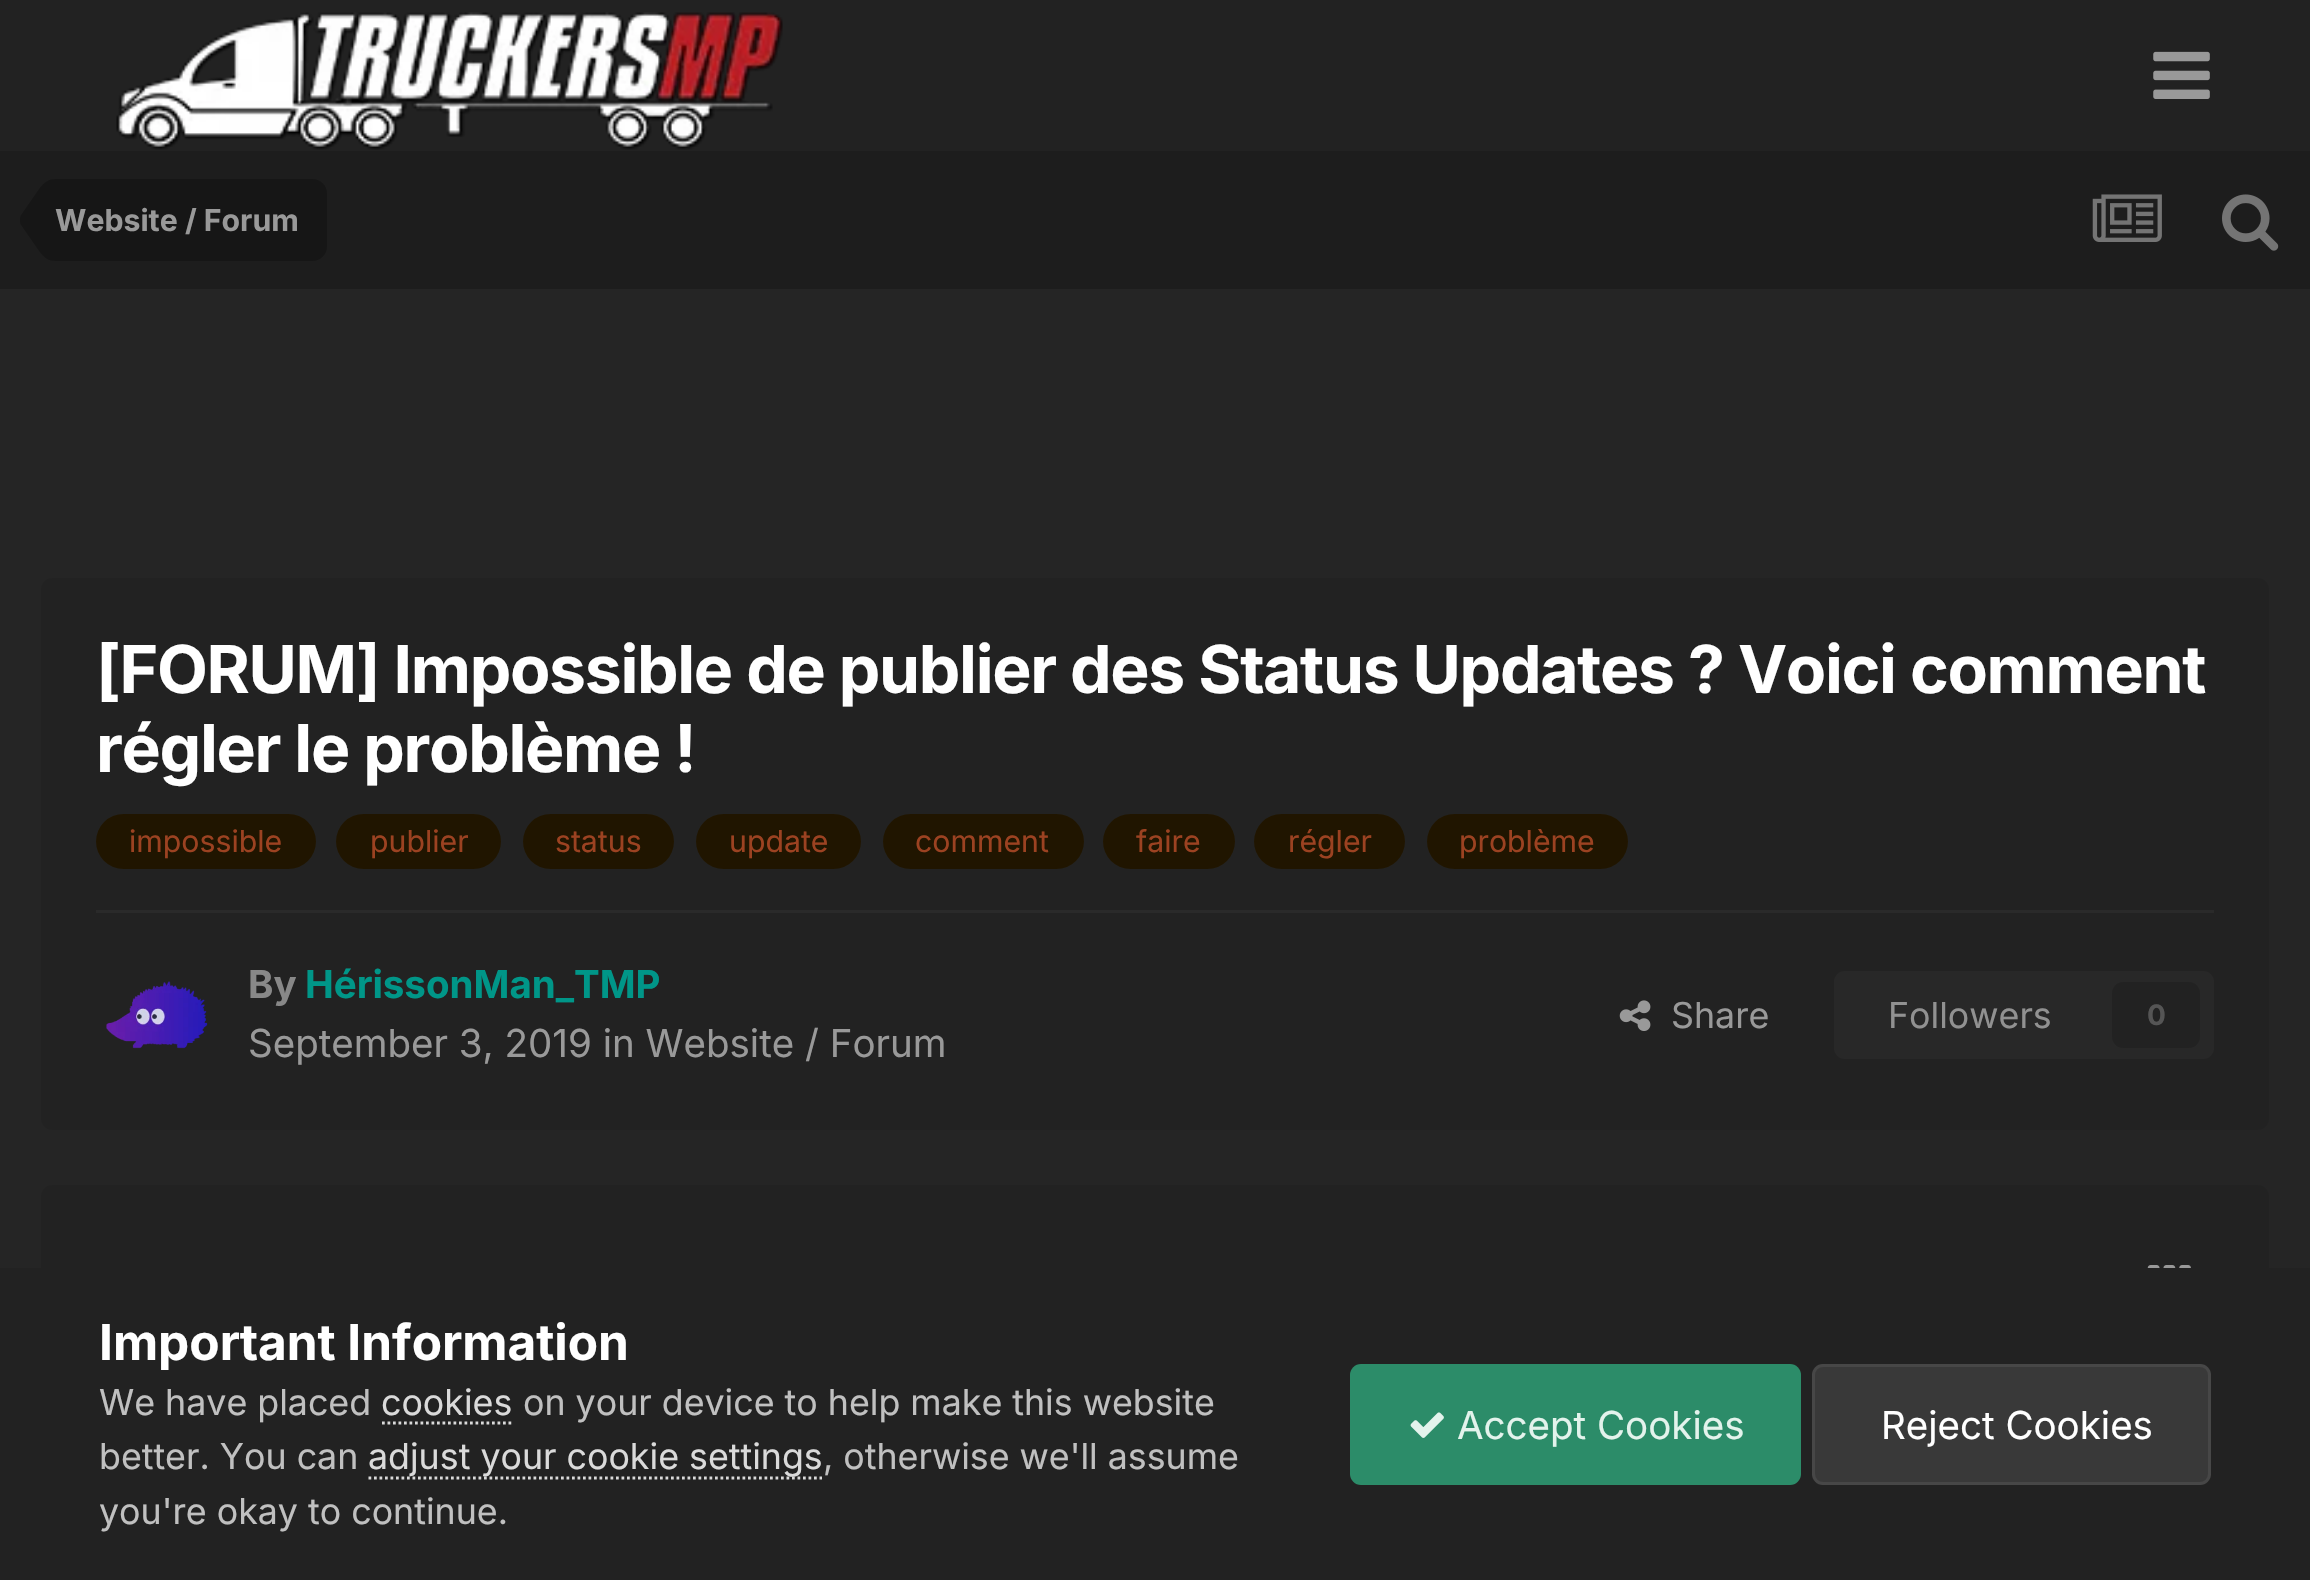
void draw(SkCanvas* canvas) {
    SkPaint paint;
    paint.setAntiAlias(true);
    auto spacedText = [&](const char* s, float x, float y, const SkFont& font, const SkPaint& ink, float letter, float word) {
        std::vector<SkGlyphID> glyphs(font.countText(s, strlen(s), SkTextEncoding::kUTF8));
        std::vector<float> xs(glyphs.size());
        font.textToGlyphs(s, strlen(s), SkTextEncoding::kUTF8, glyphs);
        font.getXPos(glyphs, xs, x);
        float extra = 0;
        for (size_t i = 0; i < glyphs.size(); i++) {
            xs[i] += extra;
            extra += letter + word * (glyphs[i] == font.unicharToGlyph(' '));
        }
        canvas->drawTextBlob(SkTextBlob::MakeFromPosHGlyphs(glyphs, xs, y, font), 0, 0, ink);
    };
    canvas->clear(0xFF252525);
    paint.setColor(0xFF222222);
    canvas->drawRect(SkRect::MakeXYWH(0, 0, 2310, 151), paint);
    canvas->drawImageRect(SkImages::DeferredFromEncodedData(SkData::MakeFromFileName("img1.png")), SkRect::MakeXYWH(116, 12, 667, 138), SkSamplingOptions());
    canvas->drawImageRect(SkImages::DeferredFromEncodedData(SkData::MakeFromFileName("img2.png")), SkRect::MakeXYWH(2153, 51, 57, 48), SkSamplingOptions());
    paint.setColor(0xFF1D1D1D);
    canvas->drawRect(SkRect::MakeXYWH(0, 151, 2310, 138), paint);
    paint.setColor(0xFF161616);
    canvas->drawPath(SkPathBuilder().moveTo(55, 179).lineTo(313, 179).cubicTo(320.5f, 179, 327, 185.5f, 327, 193).lineTo(327, 247).cubicTo(327, 254.5f, 320.5f, 261, 313, 261).lineTo(55, 261).close().detach(), paint);
    canvas->drawPath(SkPathBuilder().moveTo(55, 220).lineTo(55, 261).cubicTo(49, 261, 44, 258, 39, 251).lineTo(21, 225).cubicTo(20, 224, 20, 222, 20, 220).close().detach(), paint);
    canvas->drawPath(SkPathBuilder().moveTo(55, 220).lineTo(20, 220).cubicTo(20, 218, 20, 216, 21, 215).lineTo(39, 189).cubicTo(44, 182, 49, 179, 55, 179).close().detach(), paint);
    SkFont font1(fontMgr->matchFamilyStyle("Inter", SkFontStyle::Bold()), 30.25f);
    font1.setSubpixel(true);
    paint.setColor(0xFF999999);
    canvas->drawString("Website / Forum", 55, 231, font1, paint);
    canvas->drawImageRect(SkImages::DeferredFromEncodedData(SkData::MakeFromFileName("img3.png")), SkRect::MakeXYWH(2092, 194, 70, 48), SkSamplingOptions());
    canvas->drawImageRect(SkImages::DeferredFromEncodedData(SkData::MakeFromFileName("img4.png")), SkRect::MakeXYWH(2222, 194, 57, 57), SkSamplingOptions());
    paint.setColor(0xFF222222);
    canvas->drawRoundRect(SkRect::MakeXYWH(41, 578, 2228, 552), 11, 11, paint);
    SkFont font2(fontMgr->matchFamilyStyle("Inter", SkFontStyle::Bold()), 66);
    font2.setSubpixel(true);
    paint.setColor(0xFFFFFFFF);
    spacedText("[FORUM] Impossible de publier des Status Updates ? Voici comment", 96, 693, font2, paint, -1.32f, 0);
    spacedText("régler le problème !", 96, 772, font2, paint, -1.32f, 0);
    paint.setColor(0xFF201500);
    canvas->drawRoundRect(SkRect::MakeXYWH(96, 814, 220, 55), 27.5f, 27.5f, paint);
    SkFont font3(fontMgr->matchFamilyStyle("Inter", SkFontStyle::Normal()), 30.25f);
    font3.setSubpixel(true);
    paint.setColor(0xFF9C4221);
    canvas->drawString("impossible", 129, 852, font3, paint);
    paint.setColor(0xFF201500);
    canvas->drawRoundRect(SkRect::MakeXYWH(336, 814, 165, 55), 27.5f, 27.5f, paint);
    paint.setColor(0xFF9C4221);
    canvas->drawString("publier", 370, 852, font3, paint);
    paint.setColor(0xFF201500);
    canvas->drawRoundRect(SkRect::MakeXYWH(523, 814, 151, 55), 27.5f, 27.5f, paint);
    paint.setColor(0xFF9C4221);
    canvas->drawString("status", 555, 852, font3, paint);
    paint.setColor(0xFF201500);
    canvas->drawRoundRect(SkRect::MakeXYWH(696, 814, 165, 55), 27.5f, 27.5f, paint);
    paint.setColor(0xFF9C4221);
    canvas->drawString("update", 729, 852, font3, paint);
    paint.setColor(0xFF201500);
    canvas->drawRoundRect(SkRect::MakeXYWH(883, 814, 201, 55), 27.5f, 27.5f, paint);
    paint.setColor(0xFF9C4221);
    canvas->drawString("comment", 915, 852, font3, paint);
    paint.setColor(0xFF201500);
    canvas->drawRoundRect(SkRect::MakeXYWH(1103, 814, 132, 55), 27.5f, 27.5f, paint);
    paint.setColor(0xFF9C4221);
    canvas->drawString("faire", 1136, 852, font3, paint);
    paint.setColor(0xFF201500);
    canvas->drawRoundRect(SkRect::MakeXYWH(1254, 814, 151, 55), 27.5f, 27.5f, paint);
    paint.setColor(0xFF9C4221);
    canvas->drawString("régler", 1288, 852, font3, paint);
    paint.setColor(0xFF201500);
    canvas->drawRoundRect(SkRect::MakeXYWH(1427, 814, 201, 55), 27.5f, 27.5f, paint);
    paint.setColor(0xFF9C4221);
    canvas->drawString("problème", 1459, 852, font3, paint);
    paint.setColor(0xFF2A2A2A);
    canvas->drawRect(SkRect::MakeXYWH(96, 910, 2118, 3), paint);
    canvas->drawImageRect(SkImages::DeferredFromEncodedData(SkData::MakeFromFileName("img5.png")), SkRect::MakeXYWH(106, 981, 102, 68), SkSamplingOptions());
    SkFont font4(fontMgr->matchFamilyStyle("Inter", SkFontStyle::Bold()), 38.5f);
    font4.setSubpixel(true);
    paint.setColor(0xFF888888);
    canvas->drawString("By", 248, 998, font4, paint);
    paint.setColor(0xFF009688);
    canvas->drawString("HérissonMan_TMP", 305, 998, font4, paint);
    SkFont font5(fontMgr->matchFamilyStyle("Inter", SkFontStyle::Normal()), 38.5f);
    font5.setSubpixel(true);
    paint.setColor(0xFF999999);
    canvas->drawString("September 3, 2019 in Website / Forum", 248, 1057, font5, paint);
    canvas->drawImageRect(SkImages::DeferredFromEncodedData(SkData::MakeFromFileName("img6.png")), SkRect::MakeXYWH(1619, 1000, 32, 31), SkSamplingOptions());
    SkFont font6(fontMgr->matchFamilyStyle("Inter", SkFontStyle::Normal()), 35.75f);
    font6.setSubpixel(true);
    canvas->drawString("Share", 1671, 1028, font6, paint);
    paint.setColor(0xFF282828);
    canvas->drawRoundRect(SkRect::MakeXYWH(1834, 971, 380, 88), 11, 11, paint);
    paint.setColor(0xFF919191);
    canvas->drawString("Followers", 1888, 1028, font6, paint);
    paint.setColor(0xFF222222);
    canvas->drawRoundRect(SkRect::MakeXYWH(2112, 982, 88, 66), 11, 11, paint);
    SkFont font7(fontMgr->matchFamilyStyle("Inter", SkFontStyle::Bold()), 28);
    font7.setSubpixel(true);
    paint.setColor(0xFF555555);
    canvas->drawString("0", 2147, 1025, font7, paint);
    paint.setColor(0xFF222222);
    canvas->drawRoundRect(SkRect::MakeXYWH(41, 1185, 2228, 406), 11, 11, paint);
    canvas->drawImageRect(SkImages::DeferredFromEncodedData(SkData::MakeFromFileName("img7.png")), SkRect::MakeXYWH(2147, 1265, 44, 3), SkSamplingOptions());
    canvas->drawRect(SkRect::MakeXYWH(0, 1268, 2310, 312), paint);
    SkFont font8(fontMgr->matchFamilyStyle("Inter", SkFontStyle::Bold()), 49.5f);
    font8.setSubpixel(true);
    paint.setColor(0xFFFFFFFF);
    canvas->drawString("Important Information", 99, 1360, font8, paint);
    paint.setColor(0xFFC0C0C0);
    canvas->drawString("We have placed", 99, 1415, font6, paint);
    paint.setColor(0xFFDADADA);
    canvas->drawString("cookies", 381, 1415, font6, paint);
    paint.setStyle(SkPaint::kStroke_Style);
    paint.setStrokeWidth(2.8f);
    paint.setPathEffect(SkDashPathEffect::Make({{2.75f, 2.75f}}, 0));
    canvas->drawPath(SkPathBuilder().moveTo(382, 1423).lineTo(511.5f, 1423).detach(), paint);
    paint.setPathEffect(nullptr);
    paint.setStyle(SkPaint::kFill_Style);
    paint.setColor(0xFFC0C0C0);
    canvas->drawString("on your device to help make this website", 523, 1415, font6, paint);
    canvas->drawString("better. You can", 99, 1469, font6, paint);
    paint.setStyle(SkPaint::kStroke_Style);
    paint.setColor(0xFFDADADA);
    paint.setPathEffect(SkDashPathEffect::Make({{2.75f, 2.75f}}, 0));
    canvas->drawPath(SkPathBuilder().moveTo(368.5f, 1478).lineTo(822, 1478).detach(), paint);
    paint.setPathEffect(nullptr);
    paint.setStyle(SkPaint::kFill_Style);
    canvas->drawString("adjust your cookie settings", 368, 1469, font6, paint);
    paint.setColor(0xFFC0C0C0);
    canvas->drawString(", otherwise we'll assume", 823, 1469, font6, paint);
    canvas->drawString("you're okay to continue.", 99, 1524, font6, paint);
    paint.setColor(0xFF2C8C69);
    canvas->drawRoundRect(SkRect::MakeXYWH(1350, 1364, 451, 121), 11, 11, paint);
    canvas->drawImageRect(SkImages::DeferredFromEncodedData(SkData::MakeFromFileName("img8.png")), SkRect::MakeXYWH(1410, 1412, 34, 26), SkSamplingOptions());
    paint.setColor(0xFFE3F3EC);
    canvas->drawString("Accept Cookies", 1457, 1439, font5, paint);
    paint.setColor(0xFF393939);
    canvas->drawRoundRect(SkRect::MakeXYWH(1812, 1364, 399, 121), 11, 11, paint);
    paint.setStyle(SkPaint::kStroke_Style);
    paint.setStrokeWidth(3);
    paint.setColor(0x12FFFFFF);
    canvas->drawRoundRect(SkRect::MakeXYWH(1813.5f, 1365.5f, 396, 118), 9.5f, 9.5f, paint);
    paint.setStyle(SkPaint::kFill_Style);
    paint.setColor(0xFFFFFFFF);
    canvas->drawString("Reject Cookies", 1881, 1439, font5, paint);
}
